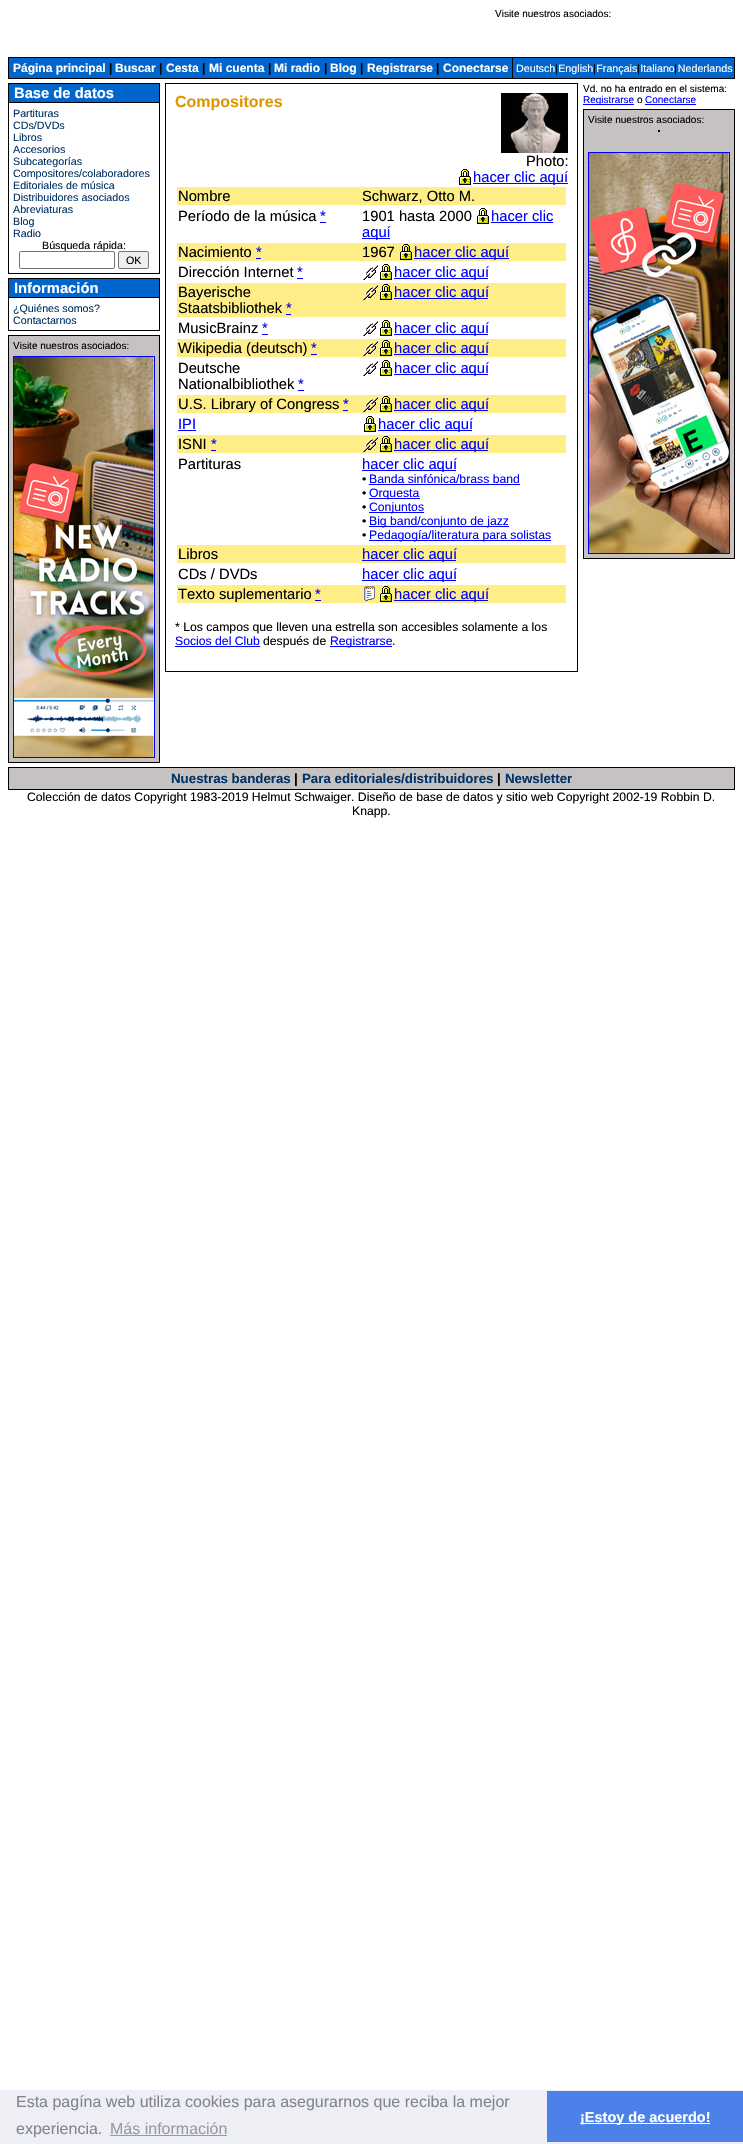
void draw(SkCanvas* canvas) {
    SkPaint paint;
    paint.setAntiAlias(true);
    canvas->clear(0xFFFFFFFF);
    SkFont font1(fontMgr->matchFamilyStyle("Liberation Sans", SkFontStyle::Normal()), 10);
    font1.setSubpixel(true);
    paint.setColor(0xFF000000);
    canvas->drawString("Visite nuestros asociados:", 495, 17, font1, paint);
    canvas->drawRect(SkRect::MakeXYWH(8, 57, 727, 22), paint);
    paint.setColor(0xFF0066CC);
    canvas->drawRect(SkRect::MakeXYWH(9, 58, 503, 20), paint);
    SkFont font2(fontMgr->matchFamilyStyle("Liberation Sans", SkFontStyle::Bold()), 12);
    font2.setSubpixel(true);
    paint.setColor(0xFFFFFFFF);
    canvas->drawString("Página principal", 13, 72, font2, paint);
    paint.setColor(0xFF000000);
    canvas->drawString("|", 109, 72, font2, paint);
    paint.setColor(0xFFFFFFFF);
    canvas->drawString("Buscar", 115, 72, font2, paint);
    paint.setColor(0xFF000000);
    canvas->drawString("|", 159, 72, font2, paint);
    paint.setColor(0xFFFFFFFF);
    canvas->drawString("Cesta", 166, 72, font2, paint);
    paint.setColor(0xFF000000);
    canvas->drawString("|", 202, 72, font2, paint);
    paint.setColor(0xFFFFFFFF);
    canvas->drawString("Mi cuenta", 209, 72, font2, paint);
    paint.setColor(0xFF000000);
    canvas->drawString("|", 268, 72, font2, paint);
    paint.setColor(0xFFFFFFFF);
    canvas->drawString("Mi radio", 274, 72, font2, paint);
    paint.setColor(0xFF000000);
    canvas->drawString("|", 324, 72, font2, paint);
    paint.setColor(0xFFFFFFFF);
    canvas->drawString("Blog", 330, 72, font2, paint);
    paint.setColor(0xFF000000);
    canvas->drawString("|", 360, 72, font2, paint);
    paint.setColor(0xFFFFFFFF);
    canvas->drawString("Registrarse", 367, 72, font2, paint);
    paint.setColor(0xFF000000);
    canvas->drawString("|", 436, 72, font2, paint);
    paint.setColor(0xFFFFFFFF);
    canvas->drawString("Conectarse", 443, 72, font2, paint);
    paint.setColor(0xFF0066CC);
    canvas->drawRect(SkRect::MakeXYWH(513, 58, 221, 20), paint);
    SkFont font3(fontMgr->matchFamilyStyle("Liberation Sans", SkFontStyle::Normal()), 10.7f);
    font3.setSubpixel(true);
    paint.setColor(0xFFFFFFFF);
    canvas->drawString("Deutsch English Français Italiano Nederlands", 516, 72, font3, paint);
    paint.setColor(0xFF000000);
    canvas->drawString("|", 555, 72, font3, paint);
    canvas->drawString("|", 593, 72, font3, paint);
    canvas->drawString("|", 637, 72, font3, paint);
    canvas->drawString("|", 674, 72, font3, paint);
    canvas->drawRect(SkRect::MakeXYWH(8, 83, 152, 191), paint);
    paint.setColor(0xFF0066CC);
    canvas->drawRect(SkRect::MakeXYWH(9, 84, 150, 18), paint);
    SkFont font4(fontMgr->matchFamilyStyle("Liberation Sans", SkFontStyle::Bold()), 14.75f);
    font4.setSubpixel(true);
    paint.setColor(0xFFFFFFFF);
    canvas->drawString("Base de datos", 14, 98, font4, paint);
    canvas->drawRect(SkRect::MakeXYWH(9, 103, 150, 170), paint);
    paint.setColor(0xFF003366);
    canvas->drawString("Partituras", 13, 117, font3, paint);
    canvas->drawString("CDs/DVDs", 13, 129, font3, paint);
    canvas->drawString("Libros", 13, 141, font3, paint);
    canvas->drawString("Accesorios", 13, 153, font3, paint);
    canvas->drawString("Subcategorías", 13, 165, font3, paint);
    canvas->drawString("Compositores/colaboradores", 13, 177, font3, paint);
    canvas->drawString("Editoriales de música", 13, 189, font3, paint);
    canvas->drawString("Distribuidores asociados", 13, 201, font3, paint);
    canvas->drawString("Abreviaturas", 13, 213, font3, paint);
    canvas->drawString("Blog", 13, 225, font3, paint);
    canvas->drawString("Radio", 13, 237, font3, paint);
    paint.setColor(0xFF000000);
    canvas->drawString("Búsqueda rápida:", 42, 249, font3, paint);
    paint.setColor(0xFFFFFFFF);
    canvas->drawRoundRect(SkRect::MakeXYWH(19.5f, 251.5f, 95, 17), 1.5f, 1.5f, paint);
    paint.setStyle(SkPaint::kStroke_Style);
    paint.setStrokeWidth(1);
    paint.setColor(0xFF767676);
    canvas->drawRoundRect(SkRect::MakeXYWH(19.5f, 251.5f, 95, 17), 1.5f, 1.5f, paint);
    paint.setStyle(SkPaint::kFill_Style);
    paint.setColor(0xFFEFEFEF);
    canvas->drawRoundRect(SkRect::MakeXYWH(118.5f, 251.5f, 30, 17), 1.5f, 1.5f, paint);
    paint.setStyle(SkPaint::kStroke_Style);
    paint.setColor(0xFF767676);
    canvas->drawRoundRect(SkRect::MakeXYWH(118.5f, 251.5f, 30, 17), 1.5f, 1.5f, paint);
    paint.setStyle(SkPaint::kFill_Style);
    paint.setColor(0xFF000000);
    canvas->drawString("OK", 126, 264, font3, paint);
    canvas->drawRect(SkRect::MakeXYWH(8, 278, 152, 53), paint);
    paint.setColor(0xFF0066CC);
    canvas->drawRect(SkRect::MakeXYWH(9, 279, 150, 18), paint);
    paint.setColor(0xFFFFFFFF);
    canvas->drawString("Información", 14, 293, font4, paint);
    canvas->drawRect(SkRect::MakeXYWH(9, 298, 150, 32), paint);
    paint.setColor(0xFF003366);
    canvas->drawString("¿Quiénes somos?", 13, 312, font3, paint);
    canvas->drawString("Contactarnos", 13, 324, font3, paint);
    paint.setColor(0xFF000000);
    canvas->drawRect(SkRect::MakeXYWH(8, 335, 152, 428), paint);
    paint.setColor(0xFFC6C2C2);
    canvas->drawRect(SkRect::MakeXYWH(9, 336, 150, 426), paint);
    paint.setColor(0xFF000000);
    canvas->drawString("Visite nuestros asociados:", 13, 349, font1, paint);
    paint.setStyle(SkPaint::kStroke_Style);
    paint.setColor(0xFF0000FF);
    canvas->drawRect(SkRect::MakeXYWH(13.5f, 356.5f, 141, 401), paint);
    canvas->drawImageRect(SkImages::DeferredFromEncodedData(SkData::MakeFromFileName("img1.png")), SkRect::MakeXYWH(14, 357, 140, 400), SkSamplingOptions());
    paint.setStyle(SkPaint::kFill_Style);
    paint.setColor(0xFF000000);
    canvas->drawRect(SkRect::MakeXYWH(165, 83, 413, 589), paint);
    paint.setColor(0xFFFFFFFF);
    canvas->drawRect(SkRect::MakeXYWH(166, 84, 411, 587), paint);
    SkFont font5(fontMgr->matchFamilyStyle("Liberation Sans", SkFontStyle::Bold()), 16);
    font5.setSubpixel(true);
    paint.setColor(0xFFDF9700);
    canvas->drawString("Compositores", 175, 107, font5, paint);
    canvas->drawImageRect(SkImages::DeferredFromEncodedData(SkData::MakeFromFileName("img2.png")), SkRect::MakeXYWH(501, 93, 67, 60), SkSamplingOptions());
    SkFont font6(fontMgr->matchFamilyStyle("Liberation Sans", SkFontStyle::Normal()), 14.75f);
    font6.setSubpixel(true);
    paint.setColor(0xFF000000);
    canvas->drawString("Photo:", 526, 166, font6, paint);
    canvas->drawImageRect(SkImages::DeferredFromEncodedData(SkData::MakeFromFileName("img3.png")), SkRect::MakeXYWH(459, 169, 12, 16), SkSamplingOptions());
    paint.setColor(0xFF0000FF);
    canvas->drawRect(SkRect::MakeXYWH(473, 183, 95, 1), paint);
    canvas->drawString("hacer clic aquí", 473, 182, font6, paint);
    paint.setColor(0xFFFFEE88);
    canvas->drawRect(SkRect::MakeXYWH(177, 187, 389, 18), paint);
    paint.setColor(0xFF000000);
    canvas->drawString("Nombre", 178, 201, font6, paint);
    canvas->drawString("Schwarz, Otto M.", 362, 201, font6, paint);
    canvas->drawString("Período de la música", 178, 221, font6, paint);
    paint.setColor(0xFF0000FF);
    canvas->drawString("*", 320, 221, font6, paint);
    canvas->drawRect(SkRect::MakeXYWH(320, 222, 6, 1), paint);
    paint.setColor(0xFF000000);
    canvas->drawString("1901 hasta 2000", 362, 221, font6, paint);
    canvas->drawImageRect(SkImages::DeferredFromEncodedData(SkData::MakeFromFileName("img3.png")), SkRect::MakeXYWH(477, 208, 12, 16), SkSamplingOptions());
    paint.setColor(0xFF0000FF);
    canvas->drawString("hacer clic", 491, 221, font6, paint);
    canvas->drawRect(SkRect::MakeXYWH(491, 222, 62, 1), paint);
    canvas->drawRect(SkRect::MakeXYWH(362, 238, 28, 1), paint);
    canvas->drawString("aquí", 362, 237, font6, paint);
    paint.setColor(0xFFFFEE88);
    canvas->drawRect(SkRect::MakeXYWH(177, 243, 389, 18), paint);
    paint.setColor(0xFF000000);
    canvas->drawString("Nacimiento", 178, 257, font6, paint);
    paint.setColor(0xFF0000FF);
    canvas->drawString("*", 256, 257, font6, paint);
    canvas->drawRect(SkRect::MakeXYWH(256, 258, 5, 1), paint);
    paint.setColor(0xFF000000);
    canvas->drawString("1967", 362, 257, font6, paint);
    canvas->drawImageRect(SkImages::DeferredFromEncodedData(SkData::MakeFromFileName("img4.png")), SkRect::MakeXYWH(400, 244, 12, 16), SkSamplingOptions());
    paint.setColor(0xFF0000FF);
    canvas->drawRect(SkRect::MakeXYWH(414, 258, 95, 1), paint);
    canvas->drawString("hacer clic aquí", 414, 257, font6, paint);
    paint.setColor(0xFF000000);
    canvas->drawString("Dirección Internet", 178, 277, font6, paint);
    paint.setColor(0xFF0000FF);
    canvas->drawString("*", 297, 277, font6, paint);
    canvas->drawRect(SkRect::MakeXYWH(297, 278, 6, 1), paint);
    canvas->drawImageRect(SkImages::DeferredFromEncodedData(SkData::MakeFromFileName("img5.png")), SkRect::MakeXYWH(362, 264, 16, 16), SkSamplingOptions());
    canvas->drawImageRect(SkImages::DeferredFromEncodedData(SkData::MakeFromFileName("img3.png")), SkRect::MakeXYWH(380, 264, 12, 16), SkSamplingOptions());
    canvas->drawRect(SkRect::MakeXYWH(394, 278, 94, 1), paint);
    canvas->drawString("hacer clic aquí", 394, 277, font6, paint);
    paint.setColor(0xFFFFEE88);
    canvas->drawRect(SkRect::MakeXYWH(177, 283, 389, 34), paint);
    paint.setColor(0xFF000000);
    canvas->drawString("Bayerische", 178, 297, font6, paint);
    canvas->drawString("Staatsbibliothek", 178, 313, font6, paint);
    paint.setColor(0xFF0000FF);
    canvas->drawString("*", 286, 313, font6, paint);
    canvas->drawRect(SkRect::MakeXYWH(286, 314, 5, 1), paint);
    canvas->drawImageRect(SkImages::DeferredFromEncodedData(SkData::MakeFromFileName("img6.png")), SkRect::MakeXYWH(362, 284, 16, 16), SkSamplingOptions());
    canvas->drawImageRect(SkImages::DeferredFromEncodedData(SkData::MakeFromFileName("img4.png")), SkRect::MakeXYWH(380, 284, 12, 16), SkSamplingOptions());
    canvas->drawRect(SkRect::MakeXYWH(394, 298, 94, 1), paint);
    canvas->drawString("hacer clic aquí", 394, 297, font6, paint);
    paint.setColor(0xFF000000);
    canvas->drawString("MusicBrainz", 178, 333, font6, paint);
    paint.setColor(0xFF0000FF);
    canvas->drawString("*", 262, 333, font6, paint);
    canvas->drawRect(SkRect::MakeXYWH(262, 334, 6, 1), paint);
    canvas->drawImageRect(SkImages::DeferredFromEncodedData(SkData::MakeFromFileName("img5.png")), SkRect::MakeXYWH(362, 320, 16, 16), SkSamplingOptions());
    canvas->drawImageRect(SkImages::DeferredFromEncodedData(SkData::MakeFromFileName("img3.png")), SkRect::MakeXYWH(380, 320, 12, 16), SkSamplingOptions());
    canvas->drawRect(SkRect::MakeXYWH(394, 334, 94, 1), paint);
    canvas->drawString("hacer clic aquí", 394, 333, font6, paint);
    paint.setColor(0xFFFFEE88);
    canvas->drawRect(SkRect::MakeXYWH(177, 339, 389, 18), paint);
    paint.setColor(0xFF000000);
    canvas->drawString("Wikipedia (deutsch)", 178, 353, font6, paint);
    paint.setColor(0xFF0000FF);
    canvas->drawString("*", 311, 353, font6, paint);
    canvas->drawRect(SkRect::MakeXYWH(311, 354, 6, 1), paint);
    canvas->drawImageRect(SkImages::DeferredFromEncodedData(SkData::MakeFromFileName("img6.png")), SkRect::MakeXYWH(362, 340, 16, 16), SkSamplingOptions());
    canvas->drawImageRect(SkImages::DeferredFromEncodedData(SkData::MakeFromFileName("img4.png")), SkRect::MakeXYWH(380, 340, 12, 16), SkSamplingOptions());
    canvas->drawRect(SkRect::MakeXYWH(394, 354, 94, 1), paint);
    canvas->drawString("hacer clic aquí", 394, 353, font6, paint);
    paint.setColor(0xFF000000);
    canvas->drawString("Deutsche", 178, 373, font6, paint);
    canvas->drawString("Nationalbibliothek", 178, 389, font6, paint);
    paint.setColor(0xFF0000FF);
    canvas->drawString("*", 298, 389, font6, paint);
    canvas->drawRect(SkRect::MakeXYWH(298, 390, 6, 1), paint);
    canvas->drawImageRect(SkImages::DeferredFromEncodedData(SkData::MakeFromFileName("img5.png")), SkRect::MakeXYWH(362, 360, 16, 16), SkSamplingOptions());
    canvas->drawImageRect(SkImages::DeferredFromEncodedData(SkData::MakeFromFileName("img3.png")), SkRect::MakeXYWH(380, 360, 12, 16), SkSamplingOptions());
    canvas->drawRect(SkRect::MakeXYWH(394, 374, 94, 1), paint);
    canvas->drawString("hacer clic aquí", 394, 373, font6, paint);
    paint.setColor(0xFFFFEE88);
    canvas->drawRect(SkRect::MakeXYWH(177, 395, 389, 18), paint);
    paint.setColor(0xFF000000);
    canvas->drawString("U.S. Library of Congress", 178, 409, font6, paint);
    paint.setColor(0xFF0000FF);
    canvas->drawString("*", 343, 409, font6, paint);
    canvas->drawRect(SkRect::MakeXYWH(343, 410, 5, 1), paint);
    canvas->drawImageRect(SkImages::DeferredFromEncodedData(SkData::MakeFromFileName("img6.png")), SkRect::MakeXYWH(362, 396, 16, 16), SkSamplingOptions());
    canvas->drawImageRect(SkImages::DeferredFromEncodedData(SkData::MakeFromFileName("img4.png")), SkRect::MakeXYWH(380, 396, 12, 16), SkSamplingOptions());
    canvas->drawRect(SkRect::MakeXYWH(394, 410, 94, 1), paint);
    canvas->drawString("hacer clic aquí", 394, 409, font6, paint);
    canvas->drawString("IPI", 178, 429, font6, paint);
    canvas->drawRect(SkRect::MakeXYWH(178, 430, 18, 1), paint);
    canvas->drawImageRect(SkImages::DeferredFromEncodedData(SkData::MakeFromFileName("img3.png")), SkRect::MakeXYWH(364, 416, 12, 16), SkSamplingOptions());
    canvas->drawRect(SkRect::MakeXYWH(378, 430, 94, 1), paint);
    canvas->drawString("hacer clic aquí", 378, 429, font6, paint);
    paint.setColor(0xFFFFEE88);
    canvas->drawRect(SkRect::MakeXYWH(177, 435, 389, 18), paint);
    paint.setColor(0xFF000000);
    canvas->drawString("ISNI", 178, 449, font6, paint);
    paint.setColor(0xFF0000FF);
    canvas->drawString("*", 211, 449, font6, paint);
    canvas->drawRect(SkRect::MakeXYWH(211, 450, 5, 1), paint);
    canvas->drawImageRect(SkImages::DeferredFromEncodedData(SkData::MakeFromFileName("img6.png")), SkRect::MakeXYWH(362, 436, 16, 16), SkSamplingOptions());
    canvas->drawImageRect(SkImages::DeferredFromEncodedData(SkData::MakeFromFileName("img4.png")), SkRect::MakeXYWH(380, 436, 12, 16), SkSamplingOptions());
    canvas->drawRect(SkRect::MakeXYWH(394, 450, 94, 1), paint);
    canvas->drawString("hacer clic aquí", 394, 449, font6, paint);
    paint.setColor(0xFF000000);
    canvas->drawString("Partituras", 178, 469, font6, paint);
    paint.setColor(0xFF0000FF);
    canvas->drawRect(SkRect::MakeXYWH(362, 470, 94, 1), paint);
    canvas->drawString("hacer clic aquí", 362, 469, font6, paint);
    SkFont font7(fontMgr->matchFamilyStyle("Liberation Sans", SkFontStyle::Normal()), 12.22f);
    font7.setSubpixel(true);
    paint.setColor(0xFF000000);
    canvas->drawString("•", 362, 483, font7, paint);
    paint.setColor(0xFF0000FF);
    canvas->drawString("Banda sinfónica/brass band", 369, 483, font7, paint);
    canvas->drawRect(SkRect::MakeXYWH(369, 484, 151, 1), paint);
    paint.setColor(0xFF000000);
    canvas->drawString("•", 362, 497, font7, paint);
    paint.setColor(0xFF0000FF);
    canvas->drawRect(SkRect::MakeXYWH(369, 498, 51, 1), paint);
    canvas->drawString("Orquesta", 369, 497, font7, paint);
    paint.setColor(0xFF000000);
    canvas->drawString("•", 362, 511, font7, paint);
    paint.setColor(0xFF0000FF);
    canvas->drawRect(SkRect::MakeXYWH(369, 512, 55, 1), paint);
    canvas->drawString("Conjuntos", 369, 511, font7, paint);
    paint.setColor(0xFF000000);
    canvas->drawString("•", 362, 525, font7, paint);
    paint.setColor(0xFF0000FF);
    canvas->drawRect(SkRect::MakeXYWH(369, 526, 140, 1), paint);
    canvas->drawString("Big band/conjunto de jazz", 369, 525, font7, paint);
    paint.setColor(0xFF000000);
    canvas->drawString("•", 362, 539, font7, paint);
    paint.setColor(0xFF0000FF);
    canvas->drawRect(SkRect::MakeXYWH(369, 540, 182, 1), paint);
    canvas->drawString("Pedagogía/literatura para solistas", 369, 539, font7, paint);
    paint.setColor(0xFFFFEE88);
    canvas->drawRect(SkRect::MakeXYWH(177, 545, 389, 18), paint);
    paint.setColor(0xFF000000);
    canvas->drawString("Libros", 178, 559, font6, paint);
    paint.setColor(0xFF0000FF);
    canvas->drawRect(SkRect::MakeXYWH(362, 560, 94, 1), paint);
    canvas->drawString("hacer clic aquí", 362, 559, font6, paint);
    paint.setColor(0xFF000000);
    canvas->drawString("CDs / DVDs", 178, 579, font6, paint);
    paint.setColor(0xFF0000FF);
    canvas->drawRect(SkRect::MakeXYWH(362, 580, 94, 1), paint);
    canvas->drawString("hacer clic aquí", 362, 579, font6, paint);
    paint.setColor(0xFFFFEE88);
    canvas->drawRect(SkRect::MakeXYWH(177, 585, 389, 18), paint);
    paint.setColor(0xFF000000);
    canvas->drawString("Texto suplementario", 178, 599, font6, paint);
    paint.setColor(0xFF0000FF);
    canvas->drawString("*", 315, 599, font6, paint);
    canvas->drawRect(SkRect::MakeXYWH(315, 600, 6, 1), paint);
    canvas->drawImageRect(SkImages::DeferredFromEncodedData(SkData::MakeFromFileName("img7.png")), SkRect::MakeXYWH(364, 586, 11, 15), SkSamplingOptions());
    canvas->drawImageRect(SkImages::DeferredFromEncodedData(SkData::MakeFromFileName("img4.png")), SkRect::MakeXYWH(380, 586, 12, 16), SkSamplingOptions());
    canvas->drawRect(SkRect::MakeXYWH(394, 600, 94, 1), paint);
    canvas->drawString("hacer clic aquí", 394, 599, font6, paint);
    paint.setColor(0xFF000000);
    canvas->drawString("* Los campos que lleven una estrella son accesibles solamente a los", 175, 631, font7, paint);
    paint.setColor(0xFF0000FF);
    canvas->drawString("Socios del Club", 175, 645, font7, paint);
    canvas->drawRect(SkRect::MakeXYWH(175, 646, 85, 1), paint);
    paint.setColor(0xFF000000);
    canvas->drawString("después de", 263, 645, font7, paint);
    paint.setColor(0xFF0000FF);
    canvas->drawRect(SkRect::MakeXYWH(330, 646, 62, 1), paint);
    canvas->drawString("Registrarse", 330, 645, font7, paint);
    paint.setColor(0xFF000000);
    canvas->drawString(".", 392, 645, font7, paint);
    canvas->drawString("Vd. no ha entrado en el sistema:", 583, 92, font1, paint);
    paint.setColor(0xFF0000FF);
    canvas->drawRect(SkRect::MakeXYWH(583, 104, 51, 1), paint);
    canvas->drawString("Registrarse", 583, 103, font1, paint);
    paint.setColor(0xFF000000);
    canvas->drawString("o", 637, 103, font1, paint);
    paint.setColor(0xFF0000FF);
    canvas->drawString("Conectarse", 645, 103, font1, paint);
    canvas->drawRect(SkRect::MakeXYWH(645, 104, 51, 1), paint);
    paint.setColor(0xFF000000);
    canvas->drawRect(SkRect::MakeXYWH(583, 109, 152, 450), paint);
    paint.setColor(0xFFC6C2C2);
    canvas->drawRect(SkRect::MakeXYWH(584, 110, 150, 448), paint);
    paint.setColor(0xFF000000);
    canvas->drawString("Visite nuestros asociados:", 588, 123, font1, paint);
    canvas->drawRect(SkRect::MakeXYWH(658, 130, 2, 1), paint);
    canvas->drawRect(SkRect::MakeXYWH(658, 131, 2, 1), paint);
    paint.setStyle(SkPaint::kStroke_Style);
    paint.setColor(0xFF0000FF);
    canvas->drawRect(SkRect::MakeXYWH(588.5f, 152.5f, 141, 401), paint);
    canvas->drawImageRect(SkImages::DeferredFromEncodedData(SkData::MakeFromFileName("img8.png")), SkRect::MakeXYWH(589, 153, 140, 400), SkSamplingOptions());
    paint.setStyle(SkPaint::kFill_Style);
    paint.setColor(0xFF000000);
    canvas->drawRect(SkRect::MakeXYWH(8, 767, 727, 23), paint);
    paint.setColor(0xFFC6C2C2);
    canvas->drawRect(SkRect::MakeXYWH(9, 768, 725, 21), paint);
    SkFont font8(fontMgr->matchFamilyStyle("Liberation Sans", SkFontStyle::Bold()), 13.3f);
    font8.setSubpixel(true);
    paint.setColor(0xFF003366);
    canvas->drawString("Nuestras banderas", 171, 783, font8, paint);
    paint.setColor(0xFF000000);
    canvas->drawString("|", 294, 783, font8, paint);
    paint.setColor(0xFF003366);
    canvas->drawString("Para editoriales/distribuidores", 302, 783, font8, paint);
    paint.setColor(0xFF000000);
    canvas->drawString("|", 497, 783, font8, paint);
    paint.setColor(0xFF003366);
    canvas->drawString("Newsletter", 505, 783, font8, paint);
    paint.setColor(0xFF000000);
    canvas->drawString("Colección de datos Copyright 1983-2019 Helmut Schwaiger. Diseño de base de datos y sitio web Copyright 2002-19 Robbin D.", 27, 801, font7, paint);
    canvas->drawString("Knapp.", 352, 815, font7, paint);
    paint.setColor(0xFFEDEFF5);
    canvas->drawRect(SkRect::MakeXYWH(0, 2090, 743, 54), paint);
    SkFont font9(fontMgr->matchFamilyStyle("Liberation Sans", SkFontStyle::Normal()), 16);
    font9.setSubpixel(true);
    paint.setColor(0xFF838391);
    canvas->drawString("Esta pagína web utiliza cookies para asegurarnos que reciba la mejor", 16, 2107, font9, paint);
    canvas->drawString("experiencia.", 16, 2134, font9, paint);
    paint.setColor(0xFF9899A5);
    canvas->drawString("Más información", 110, 2134, font9, paint);
    canvas->drawRect(SkRect::MakeXYWH(110, 2135, 117, 1), paint);
    paint.setColor(0xFF4B81E8);
    canvas->drawRect(SkRect::MakeXYWH(547, 2091, 196, 51), paint);
    paint.setColor(0xFFFFFFFF);
    canvas->drawRect(SkRect::MakeXYWH(580, 2123, 130, 1), paint);
    SkFont font10(fontMgr->matchFamilyStyle("Liberation Sans", SkFontStyle::Bold()), 14.5f);
    font10.setSubpixel(true);
    canvas->drawString("¡Estoy de acuerdo!", 580, 2122, font10, paint);
}
